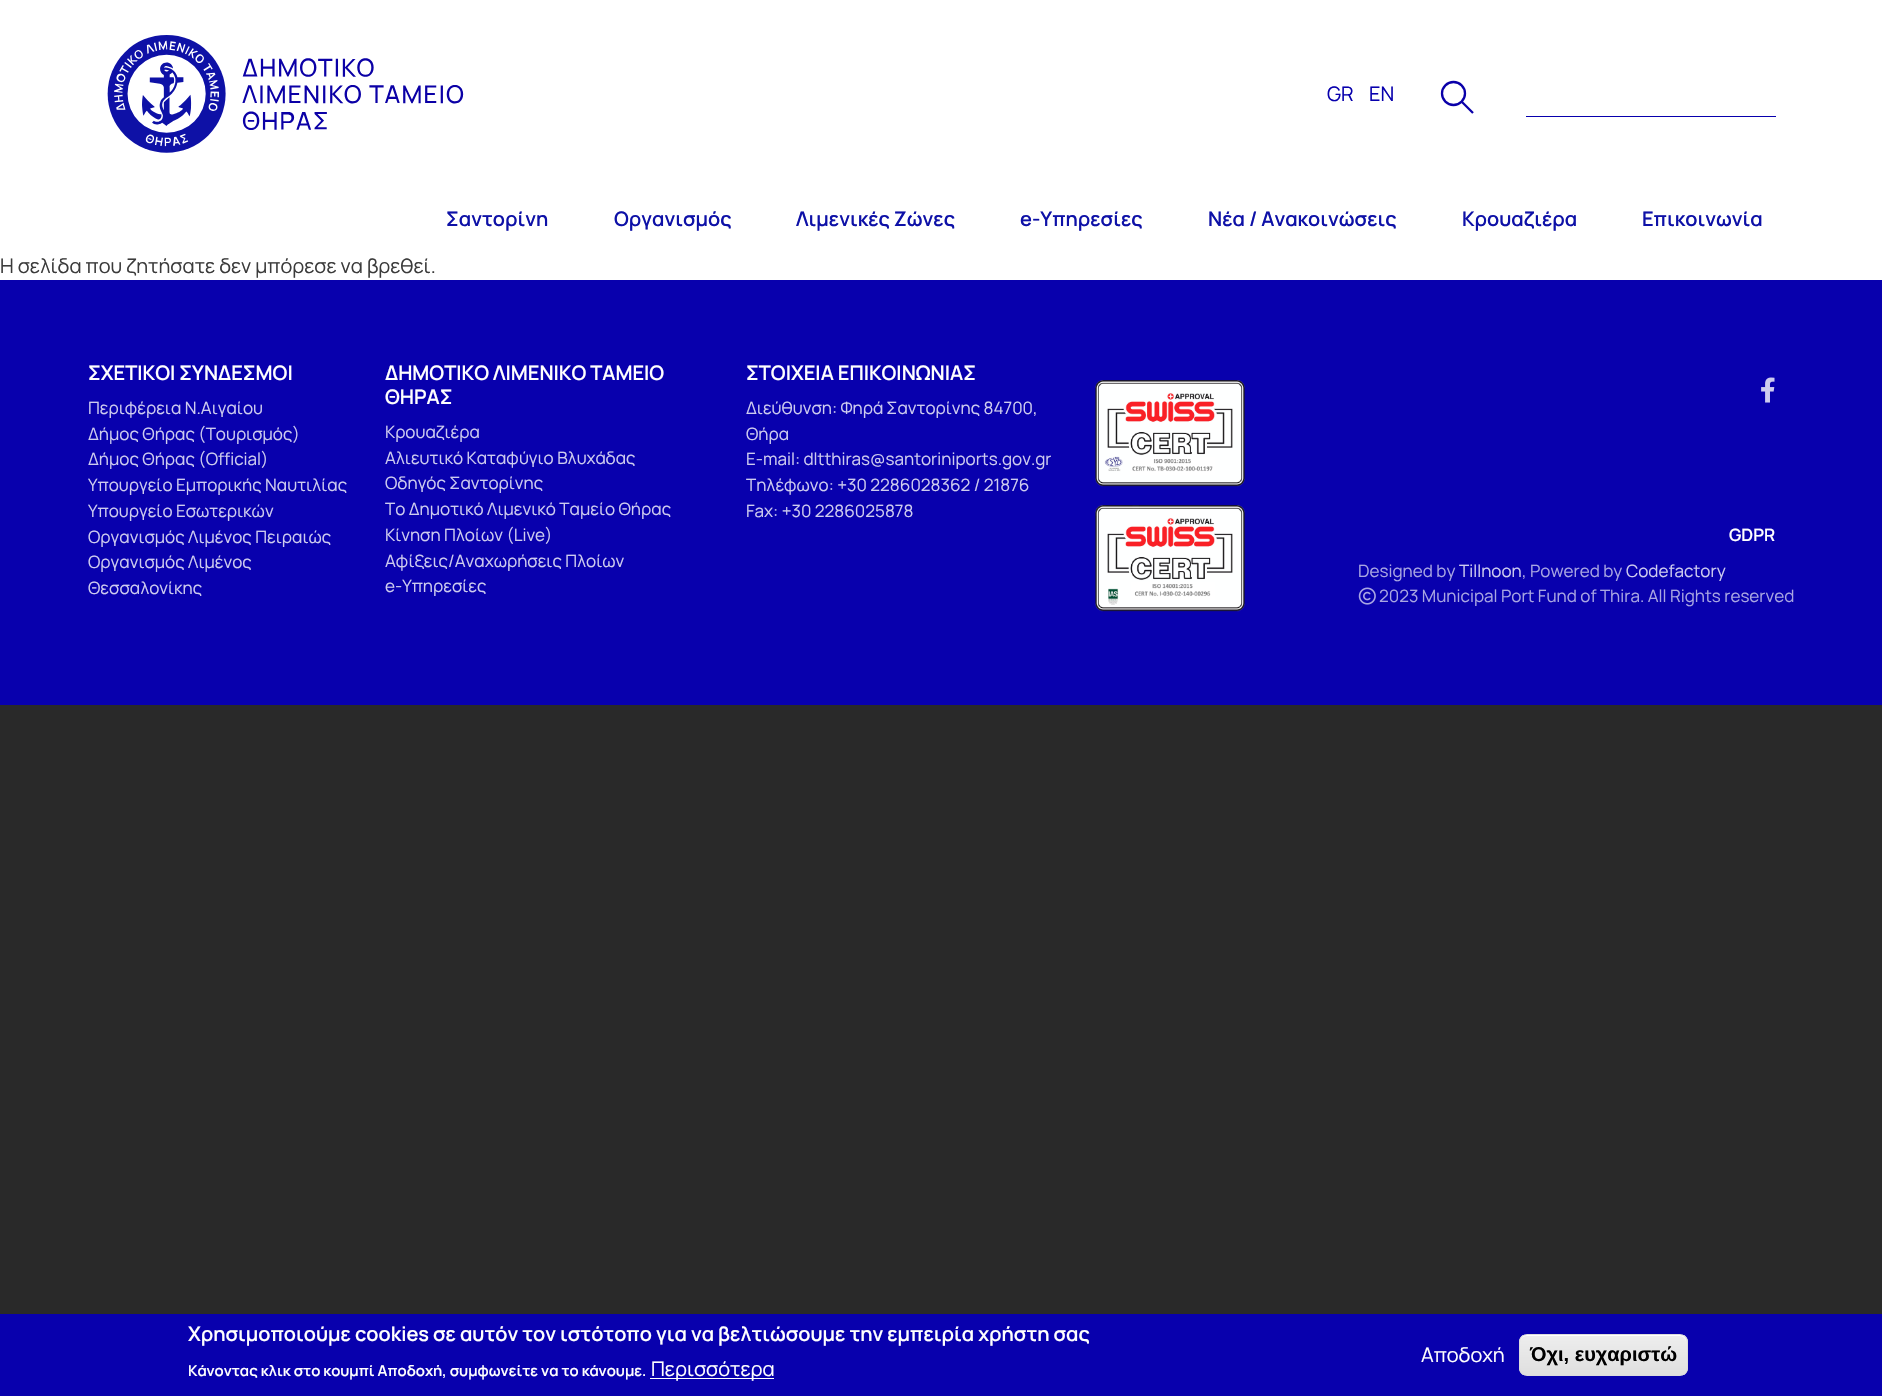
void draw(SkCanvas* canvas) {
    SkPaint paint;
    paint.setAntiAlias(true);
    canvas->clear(0xFF292929);
    paint.setColor(0xFFFFFFFF);
    canvas->drawRect(SkRect::MakeXYWH(0, 0, 1882, 280), paint);
    canvas->drawImageRect(SkImages::DeferredFromEncodedData(SkData::MakeFromFileName("img1.png")), SkRect::MakeXYWH(107, 35, 357, 118), SkSamplingOptions());
    SkFont font1(fontMgr->matchFamilyStyle("Manrope", SkFontStyle::Normal()), 20);
    font1.setSubpixel(true);
    paint.setColor(0xFF0800AD);
    canvas->drawString("GR", 1327, 101, font1, paint);
    canvas->drawString("EN", 1369, 101, font1, paint);
    paint.setStyle(SkPaint::kStroke_Style);
    paint.setStrokeWidth(2.3f);
    paint.setColor(0xFF0A00A9);
    canvas->drawCircle(1453.5f, 93.5f, 11.5f, paint);
    canvas->drawPath(SkPathBuilder().moveTo(1461.5f, 101.5f).lineTo(1473, 113).detach(), paint);
    paint.setStyle(SkPaint::kFill_Style);
    paint.setColor(0xFF0800AD);
    canvas->drawRect(SkRect::MakeXYWH(1526, 116, 250, 1), paint);
    SkFont font2(fontMgr->matchFamilyStyle("Manrope", SkFontStyle(600, SkFontStyle::kNormal_Width, SkFontStyle::kUpright_Slant)), 20);
    font2.setSubpixel(true);
    paint.setColor(0xFF0E11A7);
    canvas->drawString("Σαντορίνη", 446, 226, font2, paint);
    canvas->drawString("Οργανισμός", 614, 226, font2, paint);
    canvas->drawString("Λιμενικές Ζώνες", 796, 226, font2, paint);
    canvas->drawString("e-Υπηρεσίες", 1020, 226, font2, paint);
    canvas->drawString("Νέα / Ανακοινώσεις", 1208, 226, font2, paint);
    canvas->drawString("Κρουαζιέρα", 1462, 226, font2, paint);
    canvas->drawString("Επικοινωνία", 1642, 226, font2, paint);
    paint.setColor(0xFF3B3B3B);
    canvas->drawString("Η σελίδα που ζητήσατε δεν μπόρεσε να βρεθεί.", 0, 273, font1, paint);
    paint.setColor(0xFF0800AD);
    canvas->drawRect(SkRect::MakeXYWH(0, 280, 1882, 425), paint);
    paint.setColor(0xFFFFFFFF);
    canvas->drawString("ΣΧΕΤΙΚΟΙ ΣΥΝΔΕΣΜΟΙ", 88, 380, font2, paint);
    SkFont font3(fontMgr->matchFamilyStyle("Manrope", SkFontStyle::Normal()), 17.1f);
    font3.setSubpixel(true);
    paint.setColor(0xFFCECCEF);
    canvas->drawString("Περιφέρεια Ν.Αιγαίου", 88, 414, font3, paint);
    canvas->drawString("Δήμος Θήρας (Τουρισμός)", 88, 440, font3, paint);
    canvas->drawString("Δήμος Θήρας (Official)", 88, 465, font3, paint);
    canvas->drawString("Υπουργείο Εμπορικής Ναυτιλίας", 88, 491, font3, paint);
    canvas->drawString("Υπουργείο Εσωτερικών", 88, 517, font3, paint);
    canvas->drawString("Οργανισμός Λιμένος Πειραιώς", 88, 543, font3, paint);
    canvas->drawString("Οργανισμός Λιμένος", 88, 568, font3, paint);
    canvas->drawString("Θεσσαλονίκης", 88, 594, font3, paint);
    paint.setColor(0xFFFFFFFF);
    canvas->drawString("ΔΗΜΟΤΙΚΟ ΛΙΜΕΝΙΚΟ ΤΑΜΕΙΟ", 385, 380, font2, paint);
    canvas->drawString("ΘΗΡΑΣ", 385, 404, font2, paint);
    paint.setColor(0xFFCECCEF);
    canvas->drawString("Κρουαζιέρα", 385, 438, font3, paint);
    canvas->drawString("Αλιευτικό Καταφύγιο Βλυχάδας", 385, 464, font3, paint);
    canvas->drawString("Οδηγός Σαντορίνης", 385, 489, font3, paint);
    canvas->drawString("Το Δημοτικό Λιμενικό Ταμείο Θήρας", 385, 515, font3, paint);
    canvas->drawString("Κίνηση Πλοίων (Live)", 385, 541, font3, paint);
    canvas->drawString("Αφίξεις/Αναχωρήσεις Πλοίων", 385, 567, font3, paint);
    canvas->drawString("e-Υπηρεσίες", 385, 592, font3, paint);
    paint.setColor(0xFFFFFFFF);
    canvas->drawString("ΣΤΟΙΧΕΙΑ ΕΠΙΚΟΙΝΩΝΙΑΣ", 746, 380, font2, paint);
    paint.setColor(0xFFCECCEF);
    canvas->drawString("Διεύθυνση: Φηρά Σαντορίνης 84700,", 746, 414, font3, paint);
    canvas->drawString("Θήρα", 746, 440, font3, paint);
    canvas->drawString("E-mail: dltthiras@santoriniports.gov.gr", 746, 465, font3, paint);
    canvas->drawString("Τηλέφωνο: +30 2286028362 / 21876", 746, 491, font3, paint);
    canvas->drawString("Fax: +30 2286025878", 746, 517, font3, paint);
    canvas->drawImageRect(SkImages::DeferredFromEncodedData(SkData::MakeFromFileName("img2.png")), SkRect::MakeXYWH(1095, 380, 150, 107), SkSamplingOptions());
    canvas->drawImageRect(SkImages::DeferredFromEncodedData(SkData::MakeFromFileName("img3.png")), SkRect::MakeXYWH(1095, 505, 150, 107), SkSamplingOptions());
    canvas->drawImageRect(SkImages::DeferredFromEncodedData(SkData::MakeFromFileName("img4.png")), SkRect::MakeXYWH(1761, 377, 14, 26), SkSamplingOptions());
    SkFont font4(fontMgr->matchFamilyStyle("Manrope", SkFontStyle(600, SkFontStyle::kNormal_Width, SkFontStyle::kUpright_Slant)), 17.1f);
    font4.setSubpixel(true);
    paint.setColor(0xFFFFFFFF);
    canvas->drawString("GDPR", 1729, 541, font4, paint);
    paint.setColor(0xFFA9A6E2);
    canvas->drawString("Designed by", 1358, 577, font3, paint);
    paint.setColor(0xFFCECCEF);
    canvas->drawString("Tillnoon", 1459, 577, font3, paint);
    paint.setColor(0xFFA9A6E2);
    canvas->drawString(", Powered by", 1522, 577, font3, paint);
    paint.setColor(0xFFCECCEF);
    canvas->drawString("Codefactory", 1626, 577, font3, paint);
    canvas->drawImageRect(SkImages::DeferredFromEncodedData(SkData::MakeFromFileName("img5.png")), SkRect::MakeXYWH(1358, 587, 18, 18), SkSamplingOptions());
    paint.setColor(0xFFA9A6E2);
    canvas->drawString("2023 Municipal Port Fund of Thira. All Rights reserved", 1379, 602, font3, paint);
    paint.setColor(0xFF0800AD);
    canvas->drawRect(SkRect::MakeXYWH(0, 1314, 1882, 82), paint);
    paint.setColor(0xFFFFFFFF);
    canvas->drawString("Χρησιμοποιούμε cookies σε αυτόν τον ιστότοπο για να βελτιώσουμε την εμπειρία χρήστη σας", 188, 1341, font2, paint);
    SkFont font5(fontMgr->matchFamilyStyle("Manrope", SkFontStyle(600, SkFontStyle::kNormal_Width, SkFontStyle::kUpright_Slant)), 15);
    font5.setSubpixel(true);
    canvas->drawString("Κάνοντας κλικ στο κουμπί Αποδοχή, συμφωνείτε να το κάνουμε.", 188, 1376, font5, paint);
    canvas->drawRect(SkRect::MakeXYWH(650, 1378, 124, 1), paint);
    canvas->drawString("Περισσότερα", 651, 1376, font1, paint);
    canvas->drawString("Αποδοχή", 1421, 1362, font1, paint);
    canvas->save();
    canvas->clipPath(SkPathBuilder().moveTo(1527, 1334).lineTo(1680, 1334).cubicTo(1684.5f, 1334, 1688, 1337.5f, 1688, 1342).lineTo(1688, 1368).cubicTo(1688, 1372.5f, 1684.5f, 1376, 1680, 1376).lineTo(1527, 1376).cubicTo(1522.5f, 1376, 1519, 1372.5f, 1519, 1368).lineTo(1519, 1342).cubicTo(1519, 1337.5f, 1522.5f, 1334, 1527, 1334).close().detach(), true);
    {
        const SkColor colors[] = {0xFFEDEDED, 0xFFDFDFDF};
        const float stops[] = {0.05f, 1};
        const SkPoint ends[] = {{1603, 1335}, {1603, 1375}};
        paint.setShader(SkGradientShader::MakeLinear(ends, colors, stops, 2, SkTileMode::kClamp));
        paint.setAlpha(255);
    }
    canvas->drawRect(SkRect::MakeXYWH(1519, 1335, 169, 40), paint);
    canvas->restore();
    paint.setShader(nullptr);
    paint.setColor(0xFFFFFFFF);
    canvas->drawPath(SkPathBuilder().moveTo(1526, 1336).lineTo(1680, 1336).cubicTo(1683, 1336, 1686, 1339, 1686, 1342).lineTo(1686, 1341).cubicTo(1686, 1338, 1683, 1335, 1680, 1335).lineTo(1526, 1335).cubicTo(1523, 1335, 1520, 1338, 1520, 1341).lineTo(1520, 1342).cubicTo(1520, 1339, 1523, 1336, 1526, 1336).close().detach(), paint);
    paint.setStyle(SkPaint::kStroke_Style);
    paint.setStrokeWidth(1);
    paint.setColor(0xFFDCDCDC);
    canvas->drawRoundRect(SkRect::MakeXYWH(1519.5f, 1334.5f, 168, 41), 7.5f, 7.5f, paint);
    SkFont font6(fontMgr->matchFamilyStyle("Liberation Sans", SkFontStyle::Bold()), 20);
    font6.setSubpixel(true);
    paint.setStyle(SkPaint::kFill_Style);
    paint.setColor(0xFF000000);
    canvas->drawString("Όχι, ευχαριστώ", 1530, 1361, font6, paint);
}
